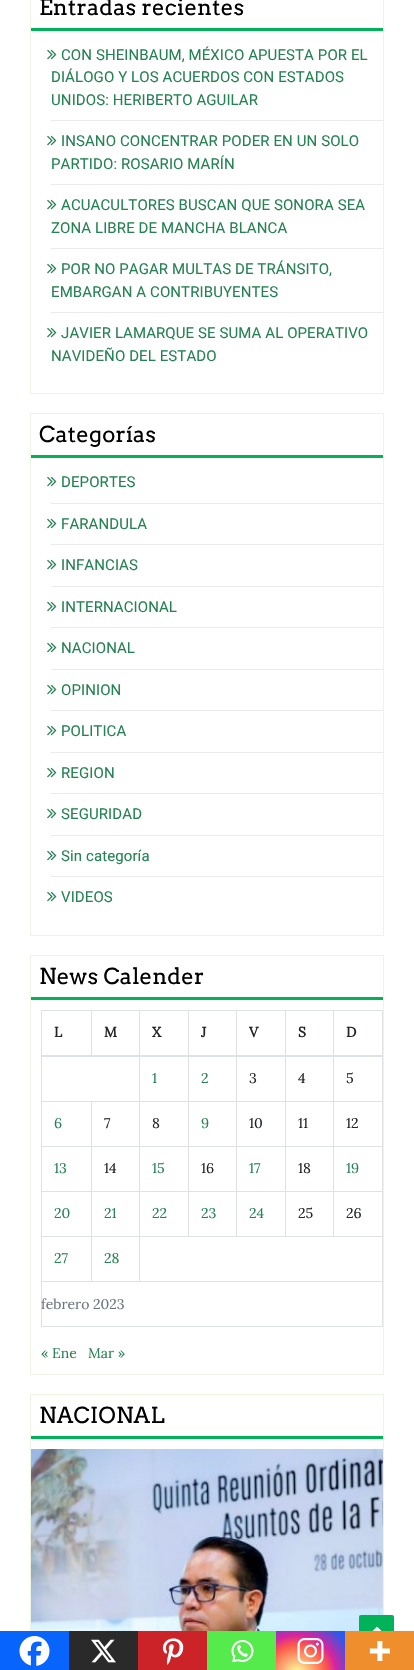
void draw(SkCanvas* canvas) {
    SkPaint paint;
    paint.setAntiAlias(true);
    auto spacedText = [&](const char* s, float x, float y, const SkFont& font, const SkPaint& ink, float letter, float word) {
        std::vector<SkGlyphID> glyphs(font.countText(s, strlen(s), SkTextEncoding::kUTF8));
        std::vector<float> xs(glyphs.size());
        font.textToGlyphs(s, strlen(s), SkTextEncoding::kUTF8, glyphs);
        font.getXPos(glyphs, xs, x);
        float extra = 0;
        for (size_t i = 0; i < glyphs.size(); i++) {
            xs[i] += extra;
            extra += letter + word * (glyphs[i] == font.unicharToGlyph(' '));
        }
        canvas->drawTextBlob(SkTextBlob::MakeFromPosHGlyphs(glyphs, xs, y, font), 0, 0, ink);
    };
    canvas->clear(0xFFFFFFFF);
    paint.setStyle(SkPaint::kStroke_Style);
    paint.setStrokeWidth(1);
    paint.setColor(0xFFEDF5E2);
    canvas->drawRect(SkRect::MakeXYWH(30.5f, -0.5f, 353, 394), paint);
    paint.setStyle(SkPaint::kFill_Style);
    paint.setColor(0xFF00B359);
    canvas->drawRect(SkRect::MakeXYWH(31, 28, 352, 3), paint);
    SkFont font1(fontMgr->matchFamilyStyle("Arvo", SkFontStyle::Normal()), 22);
    font1.setSubpixel(true);
    paint.setColor(0xFF000000);
    spacedText("Entradas recientes", 39, 15, font1, paint, 0.25f, 0);
    paint.setColor(0xFFEAEAEA);
    canvas->drawRect(SkRect::MakeXYWH(51, 120, 332, 1), paint);
    canvas->drawImageRect(SkImages::DeferredFromEncodedData(SkData::MakeFromFileName("img1.png")), SkRect::MakeXYWH(47, 49, 10, 11), SkSamplingOptions());
    SkFont font2(fontMgr->matchFamilyStyle("Roboto", SkFontStyle::Normal()), 15);
    font2.setSubpixel(true);
    paint.setColor(0xFF258254);
    spacedText("CON SHEINBAUM, MÉXICO APUESTA POR EL", 61, 60, font2, paint, 0.1f, 0);
    spacedText("DIÁLOGO Y LOS ACUERDOS CON ESTADOS", 51, 82, font2, paint, 0.1f, 0);
    spacedText("UNIDOS: HERIBERTO AGUILAR", 51, 105, font2, paint, 0.1f, 0);
    paint.setColor(0xFFEAEAEA);
    canvas->drawRect(SkRect::MakeXYWH(51, 184, 332, 1), paint);
    canvas->drawImageRect(SkImages::DeferredFromEncodedData(SkData::MakeFromFileName("img1.png")), SkRect::MakeXYWH(47, 135, 10, 11), SkSamplingOptions());
    paint.setColor(0xFF258254);
    spacedText("INSANO CONCENTRAR PODER EN UN SOLO", 61, 146, font2, paint, 0.1f, 0);
    spacedText("PARTIDO: ROSARIO MARÍN", 51, 169, font2, paint, 0.1f, 0);
    paint.setColor(0xFFEAEAEA);
    canvas->drawRect(SkRect::MakeXYWH(51, 248, 332, 1), paint);
    canvas->drawImageRect(SkImages::DeferredFromEncodedData(SkData::MakeFromFileName("img1.png")), SkRect::MakeXYWH(47, 199, 10, 11), SkSamplingOptions());
    paint.setColor(0xFF258254);
    spacedText("ACUACULTORES BUSCAN QUE SONORA SEA", 61, 210, font2, paint, 0.1f, 0);
    spacedText("ZONA LIBRE DE MANCHA BLANCA", 51, 233, font2, paint, 0.1f, 0);
    paint.setColor(0xFFEAEAEA);
    canvas->drawRect(SkRect::MakeXYWH(51, 312, 332, 1), paint);
    canvas->drawImageRect(SkImages::DeferredFromEncodedData(SkData::MakeFromFileName("img1.png")), SkRect::MakeXYWH(47, 263, 10, 11), SkSamplingOptions());
    paint.setColor(0xFF258254);
    spacedText("POR NO PAGAR MULTAS DE TRÁNSITO,", 61, 274, font2, paint, 0.1f, 0);
    spacedText("EMBARGAN A CONTRIBUYENTES", 51, 297, font2, paint, 0.1f, 0);
    canvas->drawImageRect(SkImages::DeferredFromEncodedData(SkData::MakeFromFileName("img1.png")), SkRect::MakeXYWH(47, 327, 10, 11), SkSamplingOptions());
    spacedText("JAVIER LAMARQUE SE SUMA AL OPERATIVO", 61, 338, font2, paint, 0.1f, 0);
    spacedText("NAVIDEÑO DEL ESTADO", 51, 361, font2, paint, 0.1f, 0);
    paint.setStyle(SkPaint::kStroke_Style);
    paint.setColor(0xFFEDF5E2);
    canvas->drawRect(SkRect::MakeXYWH(30.5f, 413.5f, 353, 522), paint);
    paint.setStyle(SkPaint::kFill_Style);
    paint.setColor(0xFF00B359);
    canvas->drawRect(SkRect::MakeXYWH(31, 455, 352, 3), paint);
    paint.setColor(0xFF000000);
    spacedText("Categorías", 39, 442, font1, paint, 0.25f, 0);
    paint.setColor(0xFFEAEAEA);
    canvas->drawRect(SkRect::MakeXYWH(51, 503, 332, 1), paint);
    canvas->drawImageRect(SkImages::DeferredFromEncodedData(SkData::MakeFromFileName("img1.png")), SkRect::MakeXYWH(47, 476, 10, 11), SkSamplingOptions());
    paint.setColor(0xFF258254);
    spacedText("DEPORTES", 61, 487, font2, paint, 0.1f, 0);
    paint.setColor(0xFFEAEAEA);
    canvas->drawRect(SkRect::MakeXYWH(51, 544, 332, 1), paint);
    canvas->drawImageRect(SkImages::DeferredFromEncodedData(SkData::MakeFromFileName("img1.png")), SkRect::MakeXYWH(47, 518, 10, 11), SkSamplingOptions());
    paint.setColor(0xFF258254);
    spacedText("FARANDULA", 61, 529, font2, paint, 0.1f, 0);
    paint.setColor(0xFFEAEAEA);
    canvas->drawRect(SkRect::MakeXYWH(51, 586, 332, 1), paint);
    canvas->drawImageRect(SkImages::DeferredFromEncodedData(SkData::MakeFromFileName("img1.png")), SkRect::MakeXYWH(47, 559, 10, 11), SkSamplingOptions());
    paint.setColor(0xFF258254);
    spacedText("INFANCIAS", 61, 570, font2, paint, 0.1f, 0);
    paint.setColor(0xFFEAEAEA);
    canvas->drawRect(SkRect::MakeXYWH(51, 627, 332, 1), paint);
    canvas->drawImageRect(SkImages::DeferredFromEncodedData(SkData::MakeFromFileName("img1.png")), SkRect::MakeXYWH(47, 601, 10, 11), SkSamplingOptions());
    paint.setColor(0xFF258254);
    spacedText("INTERNACIONAL", 61, 612, font2, paint, 0.1f, 0);
    paint.setColor(0xFFEAEAEA);
    canvas->drawRect(SkRect::MakeXYWH(51, 669, 332, 1), paint);
    canvas->drawImageRect(SkImages::DeferredFromEncodedData(SkData::MakeFromFileName("img1.png")), SkRect::MakeXYWH(47, 642, 10, 11), SkSamplingOptions());
    paint.setColor(0xFF258254);
    spacedText("NACIONAL", 61, 653, font2, paint, 0.1f, 0);
    paint.setColor(0xFFEAEAEA);
    canvas->drawRect(SkRect::MakeXYWH(51, 710, 332, 1), paint);
    canvas->drawImageRect(SkImages::DeferredFromEncodedData(SkData::MakeFromFileName("img1.png")), SkRect::MakeXYWH(47, 684, 10, 11), SkSamplingOptions());
    paint.setColor(0xFF258254);
    spacedText("OPINION", 61, 695, font2, paint, 0.1f, 0);
    paint.setColor(0xFFEAEAEA);
    canvas->drawRect(SkRect::MakeXYWH(51, 752, 332, 1), paint);
    canvas->drawImageRect(SkImages::DeferredFromEncodedData(SkData::MakeFromFileName("img1.png")), SkRect::MakeXYWH(47, 725, 10, 11), SkSamplingOptions());
    paint.setColor(0xFF258254);
    spacedText("POLITICA", 61, 736, font2, paint, 0.1f, 0);
    paint.setColor(0xFFEAEAEA);
    canvas->drawRect(SkRect::MakeXYWH(51, 793, 332, 1), paint);
    canvas->drawImageRect(SkImages::DeferredFromEncodedData(SkData::MakeFromFileName("img1.png")), SkRect::MakeXYWH(47, 767, 10, 11), SkSamplingOptions());
    paint.setColor(0xFF258254);
    spacedText("REGION", 61, 778, font2, paint, 0.1f, 0);
    paint.setColor(0xFFEAEAEA);
    canvas->drawRect(SkRect::MakeXYWH(51, 835, 332, 1), paint);
    canvas->drawImageRect(SkImages::DeferredFromEncodedData(SkData::MakeFromFileName("img1.png")), SkRect::MakeXYWH(47, 808, 10, 11), SkSamplingOptions());
    paint.setColor(0xFF258254);
    spacedText("SEGURIDAD", 61, 819, font2, paint, 0.1f, 0);
    paint.setColor(0xFFEAEAEA);
    canvas->drawRect(SkRect::MakeXYWH(51, 876, 332, 1), paint);
    canvas->drawImageRect(SkImages::DeferredFromEncodedData(SkData::MakeFromFileName("img1.png")), SkRect::MakeXYWH(47, 850, 10, 11), SkSamplingOptions());
    paint.setColor(0xFF258254);
    spacedText("Sin categoría", 61, 861, font2, paint, 0.1f, 0);
    canvas->drawImageRect(SkImages::DeferredFromEncodedData(SkData::MakeFromFileName("img1.png")), SkRect::MakeXYWH(47, 891, 10, 11), SkSamplingOptions());
    spacedText("VIDEOS", 61, 902, font2, paint, 0.1f, 0);
    paint.setStyle(SkPaint::kStroke_Style);
    paint.setColor(0xFFEDF5E2);
    canvas->drawRect(SkRect::MakeXYWH(30.5f, 955.5f, 353, 419), paint);
    paint.setStyle(SkPaint::kFill_Style);
    paint.setColor(0xFF00B359);
    canvas->drawRect(SkRect::MakeXYWH(31, 997, 352, 3), paint);
    paint.setColor(0xFF000000);
    spacedText("News Calender", 39, 984, font1, paint, 0.25f, 0);
    paint.setColor(0xFFDEE2E6);
    canvas->drawRect(SkRect::MakeXYWH(41, 1010, 342, 1), paint);
    canvas->drawRect(SkRect::MakeXYWH(382, 1010, 1, 317), paint);
    canvas->drawRect(SkRect::MakeXYWH(41, 1326, 342, 1), paint);
    canvas->drawRect(SkRect::MakeXYWH(41, 1010, 1, 317), paint);
    SkFont font3(fontMgr->matchFamilyStyle("Lora", SkFontStyle::Bold()), 14);
    font3.setSubpixel(true);
    paint.setColor(0xFF212529);
    canvas->drawString("L", 54, 1037, font3, paint);
    paint.setColor(0xFFDEE2E6);
    canvas->drawRect(SkRect::MakeXYWH(91, 1010, 1, 46), paint);
    paint.setColor(0xFF212529);
    canvas->drawString("M", 104, 1037, font3, paint);
    canvas->drawString("X", 152, 1037, font3, paint);
    canvas->drawString("J", 201, 1037, font3, paint);
    canvas->drawString("V", 249, 1037, font3, paint);
    canvas->drawString("S", 298, 1037, font3, paint);
    paint.setColor(0xFFDEE2E6);
    canvas->drawRect(SkRect::MakeXYWH(333, 1101, 50, 1), paint);
    canvas->drawRect(SkRect::MakeXYWH(333, 1146, 50, 1), paint);
    canvas->drawRect(SkRect::MakeXYWH(333, 1191, 50, 1), paint);
    canvas->drawRect(SkRect::MakeXYWH(139, 1236, 244, 1), paint);
    canvas->drawRect(SkRect::MakeXYWH(333, 1191, 1, 46), paint);
    canvas->drawRect(SkRect::MakeXYWH(285, 1191, 49, 1), paint);
    canvas->drawRect(SkRect::MakeXYWH(333, 1146, 1, 46), paint);
    canvas->drawRect(SkRect::MakeXYWH(285, 1146, 49, 1), paint);
    canvas->drawRect(SkRect::MakeXYWH(333, 1101, 1, 46), paint);
    canvas->drawRect(SkRect::MakeXYWH(285, 1101, 49, 1), paint);
    canvas->drawRect(SkRect::MakeXYWH(285, 1191, 1, 46), paint);
    canvas->drawRect(SkRect::MakeXYWH(236, 1191, 50, 1), paint);
    canvas->drawRect(SkRect::MakeXYWH(285, 1146, 1, 46), paint);
    canvas->drawRect(SkRect::MakeXYWH(236, 1146, 50, 1), paint);
    canvas->drawRect(SkRect::MakeXYWH(285, 1101, 1, 46), paint);
    canvas->drawRect(SkRect::MakeXYWH(236, 1101, 50, 1), paint);
    canvas->drawRect(SkRect::MakeXYWH(236, 1191, 1, 46), paint);
    canvas->drawRect(SkRect::MakeXYWH(188, 1191, 49, 1), paint);
    canvas->drawRect(SkRect::MakeXYWH(236, 1146, 1, 46), paint);
    canvas->drawRect(SkRect::MakeXYWH(188, 1146, 49, 1), paint);
    canvas->drawRect(SkRect::MakeXYWH(236, 1101, 1, 46), paint);
    canvas->drawRect(SkRect::MakeXYWH(188, 1101, 49, 1), paint);
    canvas->drawRect(SkRect::MakeXYWH(188, 1191, 1, 46), paint);
    canvas->drawRect(SkRect::MakeXYWH(139, 1191, 50, 1), paint);
    canvas->drawRect(SkRect::MakeXYWH(188, 1146, 1, 46), paint);
    canvas->drawRect(SkRect::MakeXYWH(139, 1146, 50, 1), paint);
    canvas->drawRect(SkRect::MakeXYWH(188, 1101, 1, 46), paint);
    canvas->drawRect(SkRect::MakeXYWH(139, 1101, 50, 1), paint);
    canvas->drawRect(SkRect::MakeXYWH(139, 1281, 244, 1), paint);
    canvas->drawRect(SkRect::MakeXYWH(139, 1236, 1, 46), paint);
    canvas->drawRect(SkRect::MakeXYWH(91, 1236, 49, 1), paint);
    canvas->drawRect(SkRect::MakeXYWH(139, 1191, 1, 46), paint);
    canvas->drawRect(SkRect::MakeXYWH(91, 1191, 49, 1), paint);
    canvas->drawRect(SkRect::MakeXYWH(139, 1146, 1, 46), paint);
    canvas->drawRect(SkRect::MakeXYWH(91, 1146, 49, 1), paint);
    canvas->drawRect(SkRect::MakeXYWH(139, 1101, 1, 46), paint);
    canvas->drawRect(SkRect::MakeXYWH(91, 1101, 49, 1), paint);
    canvas->drawRect(SkRect::MakeXYWH(139, 1010, 1, 92), paint);
    canvas->drawRect(SkRect::MakeXYWH(188, 1010, 1, 92), paint);
    canvas->drawRect(SkRect::MakeXYWH(236, 1010, 1, 92), paint);
    canvas->drawRect(SkRect::MakeXYWH(285, 1010, 1, 92), paint);
    canvas->drawRect(SkRect::MakeXYWH(333, 1010, 1, 92), paint);
    canvas->drawRect(SkRect::MakeXYWH(41, 1055, 342, 2), paint);
    paint.setColor(0xFF212529);
    canvas->drawString("D", 346, 1037, font3, paint);
    SkFont font4(fontMgr->matchFamilyStyle("Lora", SkFontStyle::Normal()), 14);
    font4.setSubpixel(true);
    paint.setColor(0xFF258254);
    canvas->drawString("1", 152, 1083, font4, paint);
    canvas->drawString("2", 201, 1083, font4, paint);
    paint.setColor(0xFF212529);
    canvas->drawString("3", 249, 1083, font4, paint);
    canvas->drawString("4", 298, 1083, font4, paint);
    canvas->drawString("5", 346, 1083, font4, paint);
    paint.setColor(0xFFDEE2E6);
    canvas->drawRect(SkRect::MakeXYWH(91, 1281, 49, 1), paint);
    canvas->drawRect(SkRect::MakeXYWH(91, 1236, 1, 46), paint);
    canvas->drawRect(SkRect::MakeXYWH(41, 1236, 51, 1), paint);
    canvas->drawRect(SkRect::MakeXYWH(91, 1191, 1, 46), paint);
    canvas->drawRect(SkRect::MakeXYWH(41, 1191, 51, 1), paint);
    canvas->drawRect(SkRect::MakeXYWH(91, 1146, 1, 46), paint);
    canvas->drawRect(SkRect::MakeXYWH(41, 1146, 51, 1), paint);
    canvas->drawRect(SkRect::MakeXYWH(91, 1101, 1, 46), paint);
    canvas->drawRect(SkRect::MakeXYWH(41, 1101, 51, 1), paint);
    paint.setColor(0xFF258254);
    canvas->drawString("6", 54, 1128, font4, paint);
    paint.setColor(0xFF212529);
    canvas->drawString("7", 104, 1128, font4, paint);
    canvas->drawString("8", 152, 1128, font4, paint);
    paint.setColor(0xFF258254);
    canvas->drawString("9", 201, 1128, font4, paint);
    paint.setColor(0xFF212529);
    canvas->drawString("10", 249, 1128, font4, paint);
    canvas->drawString("11", 298, 1128, font4, paint);
    canvas->drawString("12", 346, 1128, font4, paint);
    paint.setColor(0xFF258254);
    canvas->drawString("13", 54, 1173, font4, paint);
    paint.setColor(0xFF212529);
    canvas->drawString("14", 104, 1173, font4, paint);
    paint.setColor(0xFF258254);
    canvas->drawString("15", 152, 1173, font4, paint);
    paint.setColor(0xFF212529);
    canvas->drawString("16", 201, 1173, font4, paint);
    paint.setColor(0xFF258254);
    canvas->drawString("17", 249, 1173, font4, paint);
    paint.setColor(0xFF212529);
    canvas->drawString("18", 298, 1173, font4, paint);
    paint.setColor(0xFF258254);
    canvas->drawString("19", 346, 1173, font4, paint);
    canvas->drawString("20", 54, 1218, font4, paint);
    canvas->drawString("21", 104, 1218, font4, paint);
    canvas->drawString("22", 152, 1218, font4, paint);
    canvas->drawString("23", 201, 1218, font4, paint);
    canvas->drawString("24", 249, 1218, font4, paint);
    paint.setColor(0xFF212529);
    canvas->drawString("25", 298, 1218, font4, paint);
    canvas->drawString("26", 346, 1218, font4, paint);
    paint.setColor(0xFFDEE2E6);
    canvas->drawRect(SkRect::MakeXYWH(41, 1281, 51, 1), paint);
    paint.setColor(0xFF258254);
    canvas->drawString("27", 54, 1263, font4, paint);
    canvas->drawString("28", 104, 1263, font4, paint);
    paint.setColor(0xFF6C757D);
    canvas->drawString("febrero 2023", 41, 1309, font4, paint);
    paint.setColor(0xFF258254);
    canvas->drawString("« Ene", 41, 1358, font4, paint);
    canvas->drawString("Mar »", 88, 1358, font4, paint);
    paint.setStyle(SkPaint::kStroke_Style);
    paint.setColor(0xFFEDF5E2);
    canvas->drawRect(SkRect::MakeXYWH(30.5f, 1394.5f, 353, 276), paint);
    paint.setStyle(SkPaint::kFill_Style);
    paint.setColor(0xFF00B359);
    canvas->drawRect(SkRect::MakeXYWH(31, 1436, 352, 3), paint);
    paint.setColor(0xFF000000);
    spacedText("NACIONAL", 39, 1423, font1, paint, 0.25f, 0);
    canvas->drawImageRect(SkImages::DeferredFromEncodedData(SkData::MakeFromFileName("img2.png")), SkRect::MakeXYWH(31, 1449, 352, 182), SkSamplingOptions());
    paint.setColor(0xFF0765FE);
    canvas->drawRect(SkRect::MakeXYWH(0, 1631, 69, 39), paint);
    canvas->drawImageRect(SkImages::DeferredFromEncodedData(SkData::MakeFromFileName("img3.png")), SkRect::MakeXYWH(19, 1636, 31, 30), SkSamplingOptions());
    paint.setColor(0xFF2A2A2A);
    canvas->drawRect(SkRect::MakeXYWH(69, 1631, 69, 39), paint);
    canvas->drawImageRect(SkImages::DeferredFromEncodedData(SkData::MakeFromFileName("img4.png")), SkRect::MakeXYWH(91, 1639, 25, 24), SkSamplingOptions());
    paint.setColor(0xFFCC2329);
    canvas->drawRect(SkRect::MakeXYWH(138, 1631, 69, 39), paint);
    canvas->drawImageRect(SkImages::DeferredFromEncodedData(SkData::MakeFromFileName("img5.png")), SkRect::MakeXYWH(162, 1638, 22, 27), SkSamplingOptions());
    paint.setColor(0xFF55EB4C);
    canvas->drawRect(SkRect::MakeXYWH(207, 1631, 69, 39), paint);
    canvas->drawImageRect(SkImages::DeferredFromEncodedData(SkData::MakeFromFileName("img6.png")), SkRect::MakeXYWH(231, 1640, 23, 23), SkSamplingOptions());
    {
        const SkColor colors[] = {0xFFFDF497, 0xFFFDF497, 0xFFFD5949, 0xFFD6249F, 0xFF285AEB};
        const float stops[] = {0, 0.05f, 0.45f, 0.6f, 0.9f};
        paint.setShader(SkGradientShader::MakeRadial({297, 1674}, 65, colors, stops, 5, SkTileMode::kClamp));
        paint.setAlpha(255);
    }
    canvas->drawRect(SkRect::MakeXYWH(276, 1631, 69, 39), paint);
    canvas->drawImageRect(SkImages::DeferredFromEncodedData(SkData::MakeFromFileName("img7.png")), SkRect::MakeXYWH(297, 1638, 27, 26), SkSamplingOptions());
    paint.setShader(nullptr);
    paint.setColor(0xFF00B359);
    canvas->drawRoundRect(SkRect::MakeXYWH(359, 1615, 35, 35), 2, 2, paint);
    paint.setColor(0xFFEE8E2D);
    canvas->drawRect(SkRect::MakeXYWH(345, 1631, 69, 39), paint);
    canvas->drawImageRect(SkImages::DeferredFromEncodedData(SkData::MakeFromFileName("img8.png")), SkRect::MakeXYWH(369, 1641, 21, 20), SkSamplingOptions());
    canvas->drawImageRect(SkImages::DeferredFromEncodedData(SkData::MakeFromFileName("img9.png")), SkRect::MakeXYWH(372, 1626, 10, 5), SkSamplingOptions());
}
